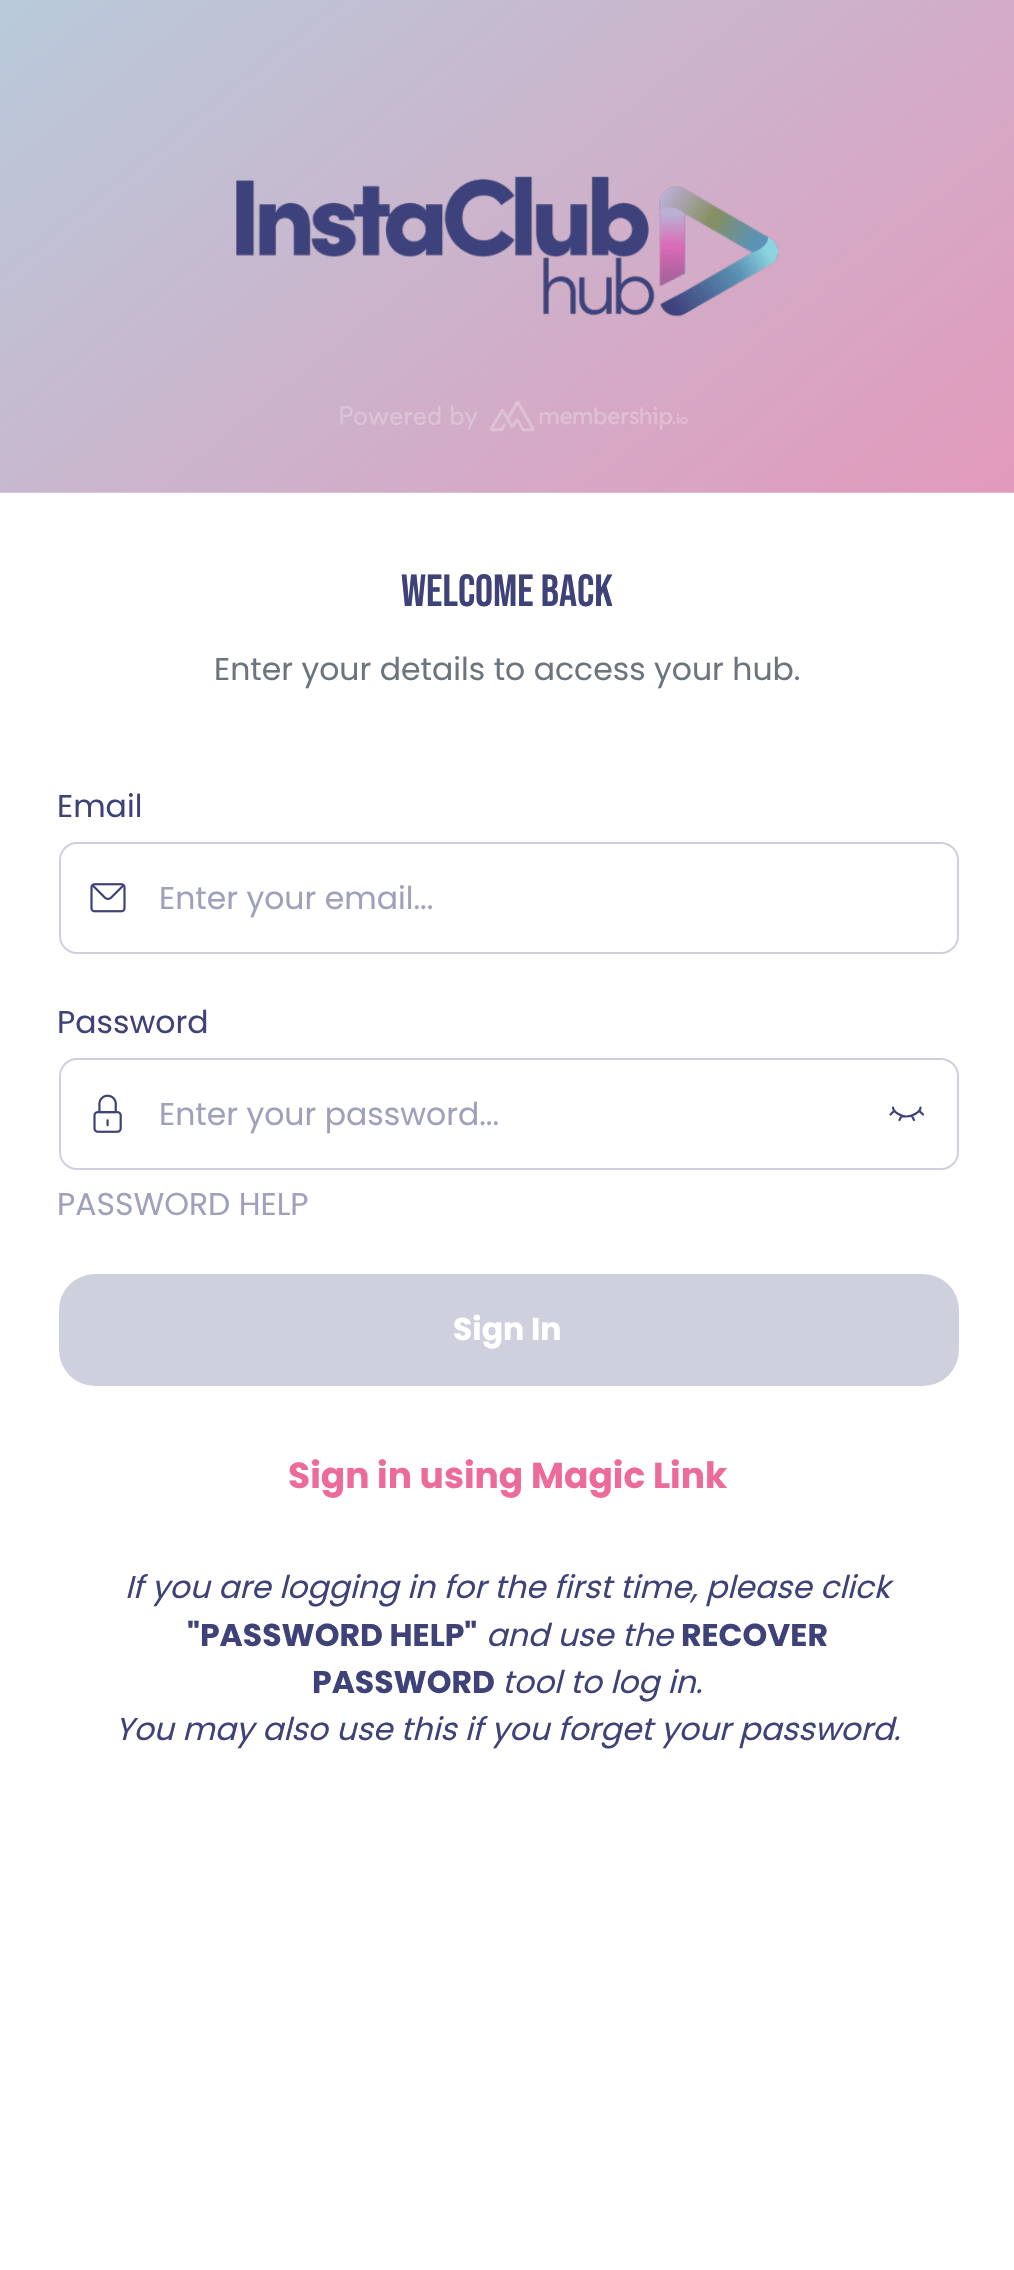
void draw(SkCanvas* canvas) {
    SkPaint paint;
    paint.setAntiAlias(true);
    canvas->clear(0xFFFFFFFF);
    canvas->drawImageRect(SkImages::DeferredFromEncodedData(SkData::MakeFromFileName("img1.png")), SkRect::MakeXYWH(0, 0, 1014, 493), SkSamplingOptions());
    canvas->drawImageRect(SkImages::DeferredFromEncodedData(SkData::MakeFromFileName("img2.png")), SkRect::MakeXYWH(340, 401, 348, 31), SkSamplingOptions());
    SkFont font1(fontMgr->matchFamilyStyle("Bebas Neue", SkFontStyle::Normal()), 45);
    font1.setSubpixel(true);
    paint.setColor(0xFF3E4278);
    canvas->drawString("Welcome back", 401, 606, font1, paint);
    SkFont font2(fontMgr->matchFamilyStyle("Poppins", SkFontStyle::Normal()), 31.5f);
    font2.setSubpixel(true);
    paint.setColor(0xFF6C757D);
    canvas->drawString("Enter your details to access your hub.", 214, 680, font2, paint);
    paint.setColor(0xFF3E4278);
    canvas->drawString("Email", 57, 817, font2, paint);
    canvas->drawImageRect(SkImages::DeferredFromEncodedData(SkData::MakeFromFileName("img3.png")), SkRect::MakeXYWH(90, 883, 36, 30), SkSamplingOptions());
    paint.setStyle(SkPaint::kStroke_Style);
    paint.setStrokeWidth(2);
    paint.setColor(0xFFCFD0DD);
    canvas->drawRoundRect(SkRect::MakeXYWH(60, 843, 898, 110), 17, 17, paint);
    paint.setStyle(SkPaint::kFill_Style);
    paint.setColor(0xFF9FA1BC);
    canvas->drawString("Enter your email...", 159, 909, font2, paint);
    paint.setColor(0xFF3E4278);
    canvas->drawString("Password", 57, 1033, font2, paint);
    canvas->drawImageRect(SkImages::DeferredFromEncodedData(SkData::MakeFromFileName("img4.png")), SkRect::MakeXYWH(93, 1094, 29, 39), SkSamplingOptions());
    paint.setStyle(SkPaint::kStroke_Style);
    paint.setStrokeWidth(2.2f);
    paint.setStrokeCap(SkPaint::kRound_Cap);
    paint.setStrokeJoin(SkPaint::kRound_Join);
    canvas->drawPath(SkPathBuilder().moveTo(920.5f, 1107.5f).cubicTo(920.5f, 1112, 912, 1116.5f, 906.5f, 1116.5f).cubicTo(901.5f, 1116.5f, 893, 1112, 893, 1107.5f).moveTo(893.5f, 1111.5f).lineTo(890.5f, 1114.5f).moveTo(901.5f, 1116).lineTo(899.5f, 1120).moveTo(920, 1111.5f).lineTo(923, 1114.5f).moveTo(912, 1116).lineTo(914, 1120).detach(), paint);
    paint.setStrokeWidth(2);
    paint.setStrokeCap(SkPaint::kButt_Cap);
    paint.setStrokeJoin(SkPaint::kMiter_Join);
    paint.setColor(0xFFCFD0DD);
    canvas->drawRoundRect(SkRect::MakeXYWH(60, 1059, 898, 110), 17, 17, paint);
    paint.setStyle(SkPaint::kFill_Style);
    paint.setColor(0xFF9FA1BC);
    canvas->drawString("Enter your password...", 159, 1125, font2, paint);
    canvas->drawString("PASSWORD HELP", 57, 1215, font2, paint);
    paint.setColor(0xFFCFD0DE);
    canvas->drawRoundRect(SkRect::MakeXYWH(59, 1274, 900, 112), 36, 36, paint);
    SkFont font3(fontMgr->matchFamilyStyle("Poppins", SkFontStyle::Bold()), 31.5f);
    font3.setSubpixel(true);
    paint.setColor(0xFFFFFFFF);
    canvas->drawString("Sign In", 453, 1340, font3, paint);
    SkFont font4(fontMgr->matchFamilyStyle("Poppins", SkFontStyle::Bold()), 36);
    font4.setSubpixel(true);
    paint.setColor(0xFFEC6B9B);
    canvas->drawString("Sign in using Magic Link", 288, 1488, font4, paint);
    SkFont font5(fontMgr->matchFamilyStyle("Poppins", SkFontStyle::Italic()), 31.5f);
    font5.setSubpixel(true);
    paint.setColor(0xFF3E4278);
    canvas->drawString("If you are logging in for the first time, please click", 125, 1598, font5, paint);
    canvas->drawString("\"PASSWORD HELP\"", 187, 1646, font3, paint);
    canvas->drawString("and use the", 486, 1646, font5, paint);
    canvas->drawString("RECOVER", 681, 1646, font3, paint);
    canvas->drawString("PASSWORD", 312, 1693, font3, paint);
    canvas->drawString("tool to log in.", 502, 1693, font5, paint);
    canvas->drawString("You may also use this if you forget your password.", 115, 1740, font5, paint);
}
